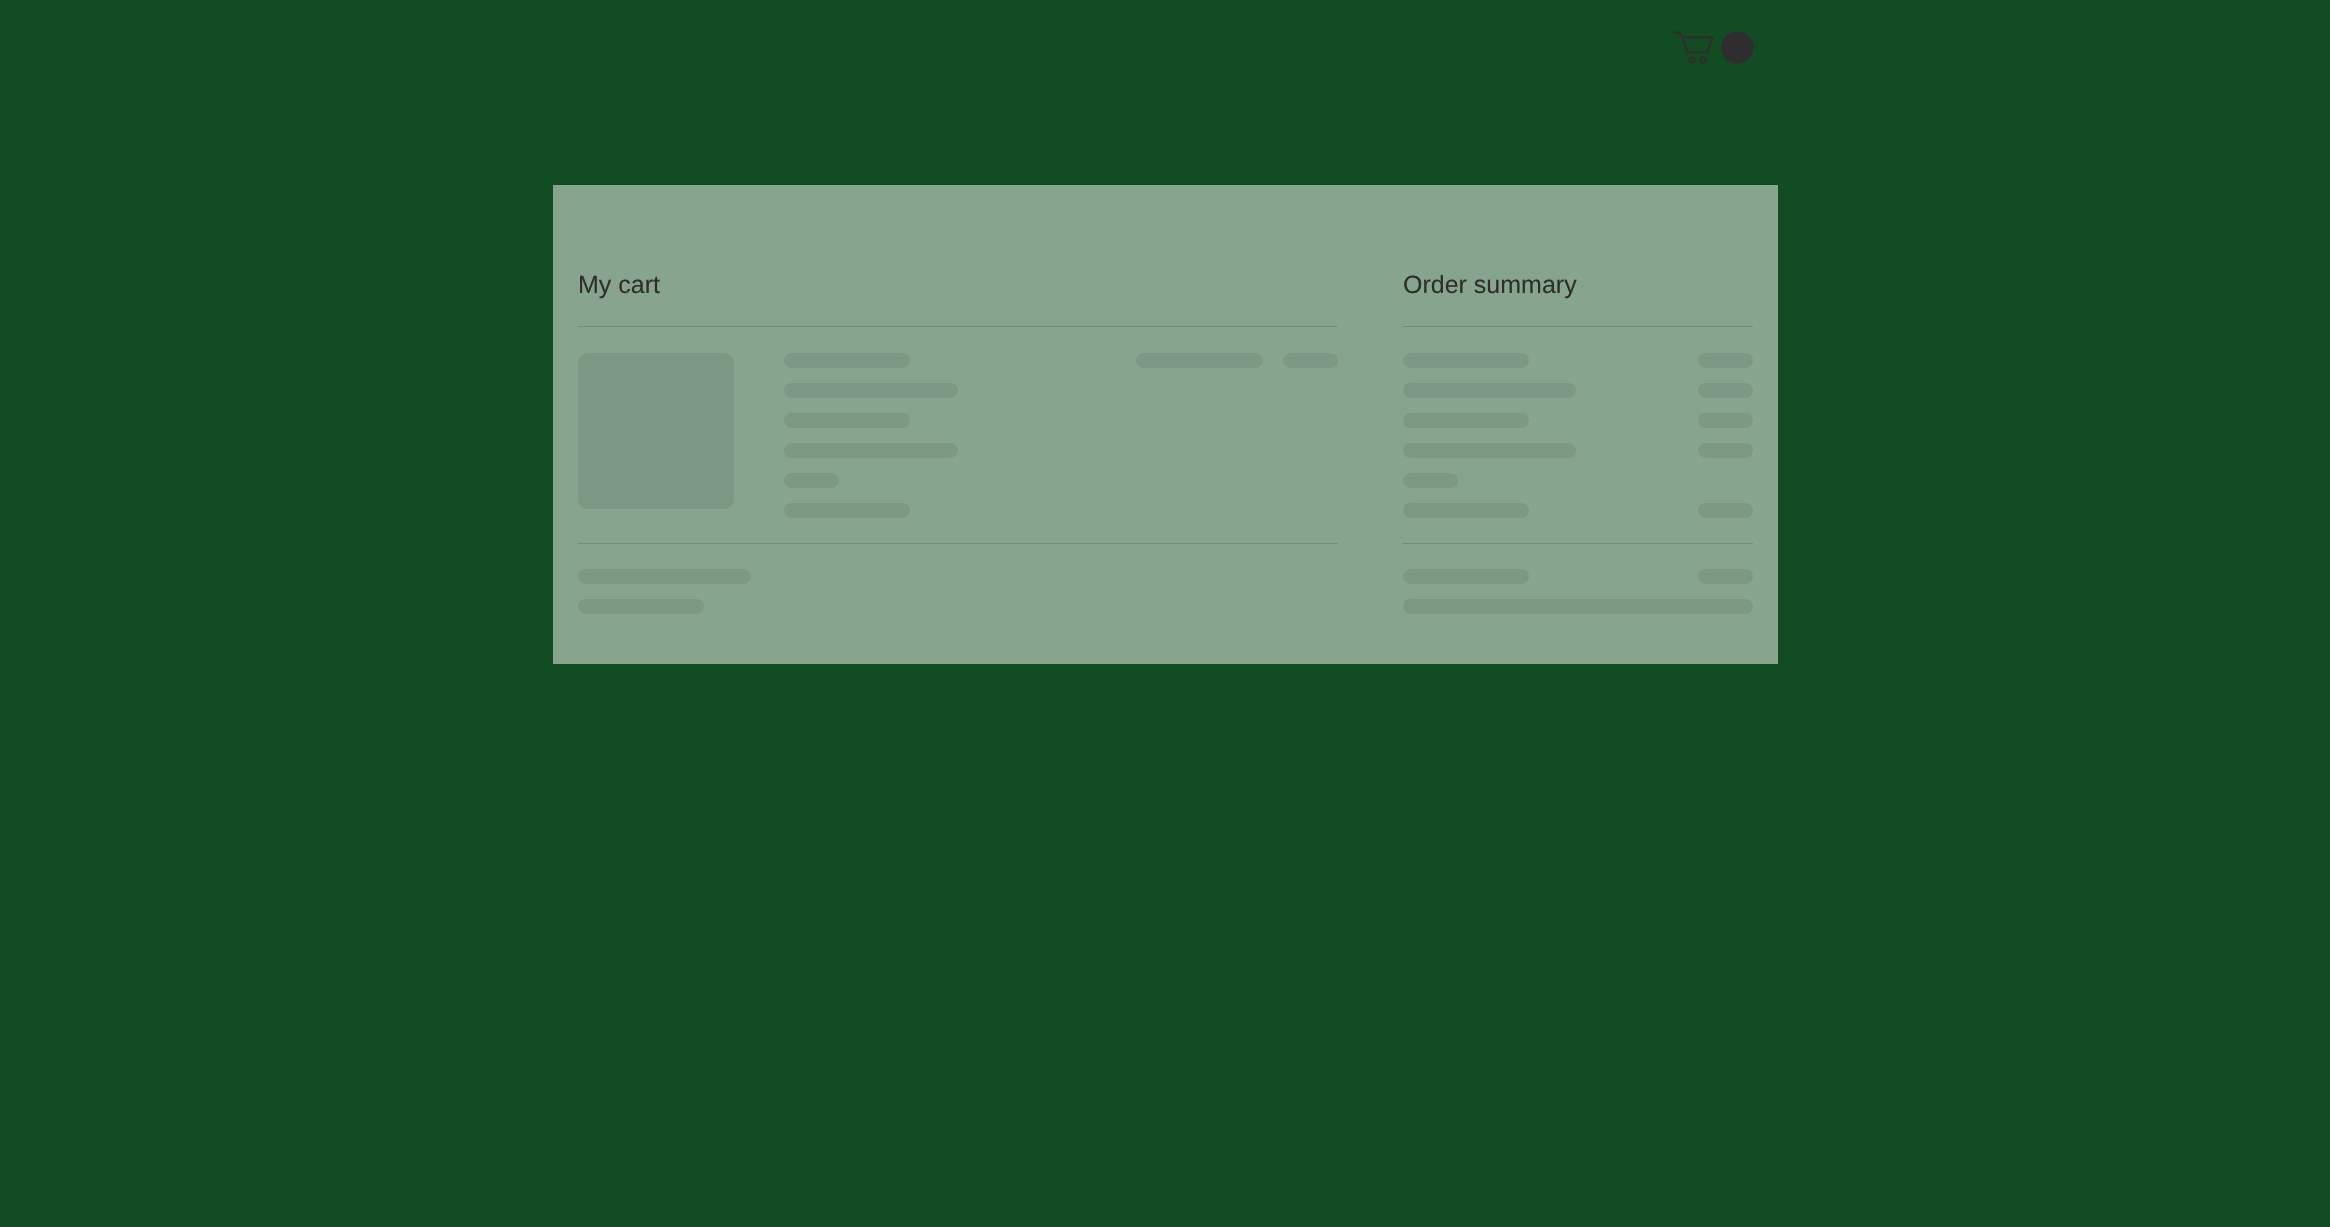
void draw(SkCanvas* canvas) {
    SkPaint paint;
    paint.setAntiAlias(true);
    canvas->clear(0xFF114C22);
    canvas->drawImageRect(SkImages::DeferredFromEncodedData(SkData::MakeFromFileName("img1.png")), SkRect::MakeXYWH(1673, 31, 81, 33), SkSamplingOptions());
    paint.setColor(0xFF86A48E);
    canvas->drawRect(SkRect::MakeXYWH(553, 185, 1225, 479), paint);
    paint.setColor(0xFF758C7B);
    canvas->drawRect(SkRect::MakeXYWH(578, 326, 760, 1), paint);
    SkFont font1(fontMgr->matchFamilyStyle("Liberation Sans", SkFontStyle::Normal()), 25);
    font1.setSubpixel(true);
    paint.setColor(0xFF302D2D);
    canvas->drawString("My cart", 578, 293, font1, paint);
    {
        const SkColor colors[] = {0xFF7D9884, 0xFF758C7B, 0xFF7D9884};
        const float stops[] = {0.25f, 0.37f, 0.63f};
        const SkPoint ends[] = {{578, 431}, {1203, 431}};
        paint.setShader(SkGradientShader::MakeLinear(ends, colors, stops, 3, SkTileMode::kClamp));
        paint.setAlpha(255);
    }
    canvas->drawRoundRect(SkRect::MakeXYWH(578, 353, 156, 156), 10, 10, paint);
    {
        const SkColor colors[] = {0xFF7D9884, 0xFF758C7B, 0xFF7D9884};
        const float stops[] = {0.25f, 0.37f, 0.63f};
        const SkPoint ends[] = {{784, 360}, {1289, 360}};
        paint.setShader(SkGradientShader::MakeLinear(ends, colors, stops, 3, SkTileMode::kClamp));
        paint.setAlpha(255);
    }
    canvas->drawRoundRect(SkRect::MakeXYWH(784, 353, 126, 15), 7.5f, 7.5f, paint);
    {
        const SkColor colors[] = {0xFF7D9884, 0xFF758C7B, 0xFF7D9884};
        const float stops[] = {0.25f, 0.37f, 0.63f};
        const SkPoint ends[] = {{784, 390}, {1479, 390}};
        paint.setShader(SkGradientShader::MakeLinear(ends, colors, stops, 3, SkTileMode::kClamp));
        paint.setAlpha(255);
    }
    canvas->drawRoundRect(SkRect::MakeXYWH(784, 383, 174, 15), 7.5f, 7.5f, paint);
    {
        const SkColor colors[] = {0xFF7D9884, 0xFF758C7B, 0xFF7D9884};
        const float stops[] = {0.25f, 0.37f, 0.63f};
        const SkPoint ends[] = {{784, 420}, {1289, 420}};
        paint.setShader(SkGradientShader::MakeLinear(ends, colors, stops, 3, SkTileMode::kClamp));
        paint.setAlpha(255);
    }
    canvas->drawRoundRect(SkRect::MakeXYWH(784, 413, 126, 15), 7.5f, 7.5f, paint);
    {
        const SkColor colors[] = {0xFF7D9884, 0xFF758C7B, 0xFF7D9884};
        const float stops[] = {0.25f, 0.37f, 0.63f};
        const SkPoint ends[] = {{784, 450}, {1479, 450}};
        paint.setShader(SkGradientShader::MakeLinear(ends, colors, stops, 3, SkTileMode::kClamp));
        paint.setAlpha(255);
    }
    canvas->drawRoundRect(SkRect::MakeXYWH(784, 443, 174, 15), 7.5f, 7.5f, paint);
    {
        const SkColor colors[] = {0xFF7D9884, 0xFF758C7B, 0xFF7D9884};
        const float stops[] = {0.25f, 0.37f, 0.63f};
        const SkPoint ends[] = {{784, 480}, {1004, 480}};
        paint.setShader(SkGradientShader::MakeLinear(ends, colors, stops, 3, SkTileMode::kClamp));
        paint.setAlpha(255);
    }
    canvas->drawRoundRect(SkRect::MakeXYWH(784, 473, 55, 15), 7.5f, 7.5f, paint);
    {
        const SkColor colors[] = {0xFF7D9884, 0xFF758C7B, 0xFF7D9884};
        const float stops[] = {0.25f, 0.37f, 0.63f};
        const SkPoint ends[] = {{784, 510}, {1289, 510}};
        paint.setShader(SkGradientShader::MakeLinear(ends, colors, stops, 3, SkTileMode::kClamp));
        paint.setAlpha(255);
    }
    canvas->drawRoundRect(SkRect::MakeXYWH(784, 503, 126, 15), 7.5f, 7.5f, paint);
    {
        const SkColor colors[] = {0xFF7D9884, 0xFF758C7B, 0xFF7D9884};
        const float stops[] = {0.25f, 0.37f, 0.63f};
        const SkPoint ends[] = {{1136, 360}, {1641, 360}};
        paint.setShader(SkGradientShader::MakeLinear(ends, colors, stops, 3, SkTileMode::kClamp));
        paint.setAlpha(255);
    }
    canvas->drawRoundRect(SkRect::MakeXYWH(1136, 353, 127, 15), 7.5f, 7.5f, paint);
    {
        const SkColor colors[] = {0xFF7D9884, 0xFF758C7B, 0xFF7D9884};
        const float stops[] = {0.25f, 0.37f, 0.63f};
        const SkPoint ends[] = {{1283, 360}, {1503, 360}};
        paint.setShader(SkGradientShader::MakeLinear(ends, colors, stops, 3, SkTileMode::kClamp));
        paint.setAlpha(255);
    }
    canvas->drawRoundRect(SkRect::MakeXYWH(1283, 353, 55, 15), 7.5f, 7.5f, paint);
    paint.setShader(nullptr);
    paint.setColor(0xFF758C7B);
    canvas->drawRect(SkRect::MakeXYWH(578, 543, 760, 1), paint);
    {
        const SkColor colors[] = {0xFF7D9884, 0xFF758C7B, 0xFF7D9884};
        const float stops[] = {0.25f, 0.37f, 0.63f};
        const SkPoint ends[] = {{578, 576}, {1273, 576}};
        paint.setShader(SkGradientShader::MakeLinear(ends, colors, stops, 3, SkTileMode::kClamp));
        paint.setAlpha(255);
    }
    canvas->drawRoundRect(SkRect::MakeXYWH(578, 569, 173, 15), 7.5f, 7.5f, paint);
    {
        const SkColor colors[] = {0xFF7D9884, 0xFF758C7B, 0xFF7D9884};
        const float stops[] = {0.25f, 0.37f, 0.63f};
        const SkPoint ends[] = {{578, 606}, {1083, 606}};
        paint.setShader(SkGradientShader::MakeLinear(ends, colors, stops, 3, SkTileMode::kClamp));
        paint.setAlpha(255);
    }
    canvas->drawRoundRect(SkRect::MakeXYWH(578, 599, 126, 15), 7.5f, 7.5f, paint);
    paint.setShader(nullptr);
    paint.setColor(0xFF758C7B);
    canvas->drawRect(SkRect::MakeXYWH(1403, 326, 350, 1), paint);
    paint.setColor(0xFF302D2D);
    canvas->drawString("Order summary", 1403, 293, font1, paint);
    {
        const SkColor colors[] = {0xFF7D9884, 0xFF758C7B, 0xFF7D9884};
        const float stops[] = {0.25f, 0.37f, 0.63f};
        const SkPoint ends[] = {{1403, 360}, {1908, 360}};
        paint.setShader(SkGradientShader::MakeLinear(ends, colors, stops, 3, SkTileMode::kClamp));
        paint.setAlpha(255);
    }
    canvas->drawRoundRect(SkRect::MakeXYWH(1403, 353, 126, 15), 7.5f, 7.5f, paint);
    {
        const SkColor colors[] = {0xFF7D9884, 0xFF758C7B, 0xFF7D9884};
        const float stops[] = {0.25f, 0.37f, 0.63f};
        const SkPoint ends[] = {{1698, 360}, {1918, 360}};
        paint.setShader(SkGradientShader::MakeLinear(ends, colors, stops, 3, SkTileMode::kClamp));
        paint.setAlpha(255);
    }
    canvas->drawRoundRect(SkRect::MakeXYWH(1698, 353, 55, 15), 7.5f, 7.5f, paint);
    {
        const SkColor colors[] = {0xFF7D9884, 0xFF758C7B, 0xFF7D9884};
        const float stops[] = {0.25f, 0.37f, 0.63f};
        const SkPoint ends[] = {{1403, 390}, {2098, 390}};
        paint.setShader(SkGradientShader::MakeLinear(ends, colors, stops, 3, SkTileMode::kClamp));
        paint.setAlpha(255);
    }
    canvas->drawRoundRect(SkRect::MakeXYWH(1403, 383, 173, 15), 7.5f, 7.5f, paint);
    {
        const SkColor colors[] = {0xFF7D9884, 0xFF758C7B, 0xFF7D9884};
        const float stops[] = {0.25f, 0.37f, 0.63f};
        const SkPoint ends[] = {{1698, 390}, {1918, 390}};
        paint.setShader(SkGradientShader::MakeLinear(ends, colors, stops, 3, SkTileMode::kClamp));
        paint.setAlpha(255);
    }
    canvas->drawRoundRect(SkRect::MakeXYWH(1698, 383, 55, 15), 7.5f, 7.5f, paint);
    {
        const SkColor colors[] = {0xFF7D9884, 0xFF758C7B, 0xFF7D9884};
        const float stops[] = {0.25f, 0.37f, 0.63f};
        const SkPoint ends[] = {{1403, 420}, {1908, 420}};
        paint.setShader(SkGradientShader::MakeLinear(ends, colors, stops, 3, SkTileMode::kClamp));
        paint.setAlpha(255);
    }
    canvas->drawRoundRect(SkRect::MakeXYWH(1403, 413, 126, 15), 7.5f, 7.5f, paint);
    {
        const SkColor colors[] = {0xFF7D9884, 0xFF758C7B, 0xFF7D9884};
        const float stops[] = {0.25f, 0.37f, 0.63f};
        const SkPoint ends[] = {{1698, 420}, {1918, 420}};
        paint.setShader(SkGradientShader::MakeLinear(ends, colors, stops, 3, SkTileMode::kClamp));
        paint.setAlpha(255);
    }
    canvas->drawRoundRect(SkRect::MakeXYWH(1698, 413, 55, 15), 7.5f, 7.5f, paint);
    {
        const SkColor colors[] = {0xFF7D9884, 0xFF758C7B, 0xFF7D9884};
        const float stops[] = {0.25f, 0.37f, 0.63f};
        const SkPoint ends[] = {{1403, 450}, {2098, 450}};
        paint.setShader(SkGradientShader::MakeLinear(ends, colors, stops, 3, SkTileMode::kClamp));
        paint.setAlpha(255);
    }
    canvas->drawRoundRect(SkRect::MakeXYWH(1403, 443, 173, 15), 7.5f, 7.5f, paint);
    {
        const SkColor colors[] = {0xFF7D9884, 0xFF758C7B, 0xFF7D9884};
        const float stops[] = {0.25f, 0.37f, 0.63f};
        const SkPoint ends[] = {{1698, 450}, {1918, 450}};
        paint.setShader(SkGradientShader::MakeLinear(ends, colors, stops, 3, SkTileMode::kClamp));
        paint.setAlpha(255);
    }
    canvas->drawRoundRect(SkRect::MakeXYWH(1698, 443, 55, 15), 7.5f, 7.5f, paint);
    {
        const SkColor colors[] = {0xFF7D9884, 0xFF758C7B, 0xFF7D9884};
        const float stops[] = {0.25f, 0.37f, 0.63f};
        const SkPoint ends[] = {{1403, 480}, {1623, 480}};
        paint.setShader(SkGradientShader::MakeLinear(ends, colors, stops, 3, SkTileMode::kClamp));
        paint.setAlpha(255);
    }
    canvas->drawRoundRect(SkRect::MakeXYWH(1403, 473, 55, 15), 7.5f, 7.5f, paint);
    {
        const SkColor colors[] = {0xFF7D9884, 0xFF758C7B, 0xFF7D9884};
        const float stops[] = {0.25f, 0.37f, 0.63f};
        const SkPoint ends[] = {{1403, 510}, {1908, 510}};
        paint.setShader(SkGradientShader::MakeLinear(ends, colors, stops, 3, SkTileMode::kClamp));
        paint.setAlpha(255);
    }
    canvas->drawRoundRect(SkRect::MakeXYWH(1403, 503, 126, 15), 7.5f, 7.5f, paint);
    {
        const SkColor colors[] = {0xFF7D9884, 0xFF758C7B, 0xFF7D9884};
        const float stops[] = {0.25f, 0.37f, 0.63f};
        const SkPoint ends[] = {{1698, 510}, {1918, 510}};
        paint.setShader(SkGradientShader::MakeLinear(ends, colors, stops, 3, SkTileMode::kClamp));
        paint.setAlpha(255);
    }
    canvas->drawRoundRect(SkRect::MakeXYWH(1698, 503, 55, 15), 7.5f, 7.5f, paint);
    paint.setShader(nullptr);
    paint.setColor(0xFF758C7B);
    canvas->drawRect(SkRect::MakeXYWH(1403, 543, 350, 1), paint);
    {
        const SkColor colors[] = {0xFF7D9884, 0xFF758C7B, 0xFF7D9884};
        const float stops[] = {0.25f, 0.37f, 0.63f};
        const SkPoint ends[] = {{1403, 576}, {1908, 576}};
        paint.setShader(SkGradientShader::MakeLinear(ends, colors, stops, 3, SkTileMode::kClamp));
        paint.setAlpha(255);
    }
    canvas->drawRoundRect(SkRect::MakeXYWH(1403, 569, 126, 15), 7.5f, 7.5f, paint);
    {
        const SkColor colors[] = {0xFF7D9884, 0xFF758C7B, 0xFF7D9884};
        const float stops[] = {0.25f, 0.37f, 0.63f};
        const SkPoint ends[] = {{1698, 576}, {1918, 576}};
        paint.setShader(SkGradientShader::MakeLinear(ends, colors, stops, 3, SkTileMode::kClamp));
        paint.setAlpha(255);
    }
    canvas->drawRoundRect(SkRect::MakeXYWH(1698, 569, 55, 15), 7.5f, 7.5f, paint);
    {
        const SkColor colors[] = {0xFF7D9884, 0xFF758C7B, 0xFF7D9884};
        const float stops[] = {0.25f, 0.37f, 0.63f};
        const SkPoint ends[] = {{1403, 606}, {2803, 606}};
        paint.setShader(SkGradientShader::MakeLinear(ends, colors, stops, 3, SkTileMode::kClamp));
        paint.setAlpha(255);
    }
    canvas->drawRoundRect(SkRect::MakeXYWH(1403, 599, 350, 15), 7.5f, 7.5f, paint);
}
